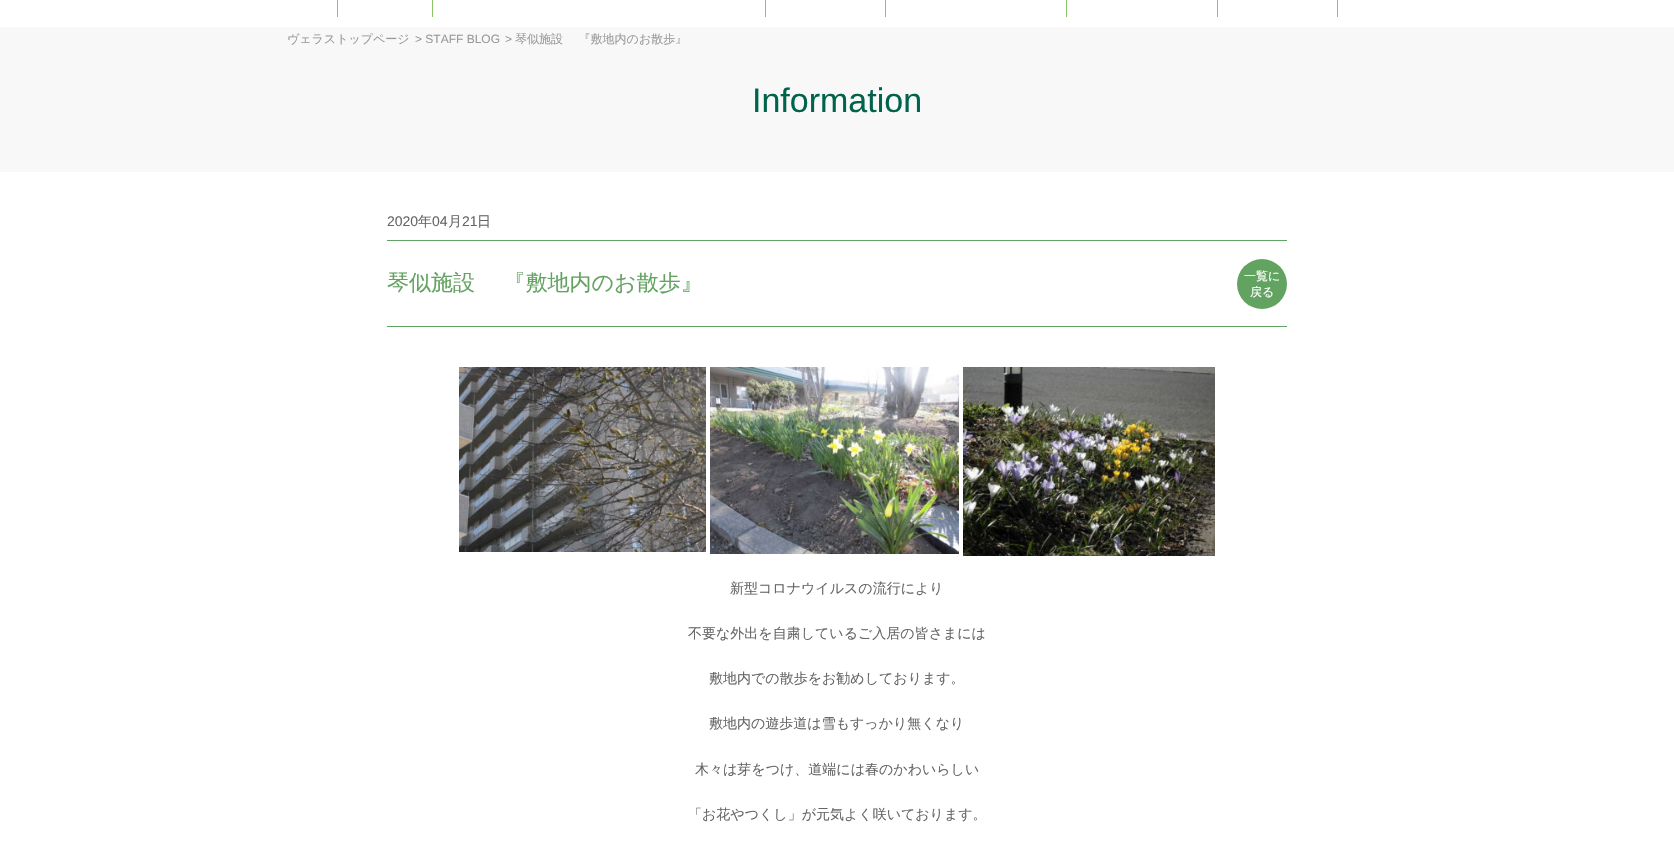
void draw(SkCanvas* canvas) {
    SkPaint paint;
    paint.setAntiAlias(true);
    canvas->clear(0xFFFFFFFF);
    paint.setColor(0xFF8BC566);
    canvas->drawRect(SkRect::MakeXYWH(432, 0, 1, 17), paint);
    canvas->drawRect(SkRect::MakeXYWH(337, 0, 1, 17), paint);
    canvas->drawRect(SkRect::MakeXYWH(765, 0, 1, 17), paint);
    canvas->drawRect(SkRect::MakeXYWH(885, 0, 1, 17), paint);
    canvas->drawRect(SkRect::MakeXYWH(1066, 0, 1, 17), paint);
    canvas->drawRect(SkRect::MakeXYWH(1217, 0, 1, 17), paint);
    canvas->drawRect(SkRect::MakeXYWH(1337, 0, 1, 17), paint);
    paint.setColor(0xFFF8F8F8);
    canvas->drawRect(SkRect::MakeXYWH(0, 27, 1674, 145), paint);
    SkFont font1(fontMgr->matchFamilyStyle("WenQuanYi Zen Hei", SkFontStyle(500, SkFontStyle::kNormal_Width, SkFontStyle::kUpright_Slant)), 12);
    font1.setSubpixel(true);
    paint.setColor(0xFF999999);
    canvas->drawString("ヴェラストップページ", 287, 43, font1, paint);
    SkFont font2(fontMgr->matchFamilyStyle("Liberation Sans", SkFontStyle::Normal()), 12);
    font2.setSubpixel(true);
    canvas->drawString("> STAFF BLOG", 415, 43, font2, paint);
    canvas->drawString(">", 505, 43, font2, paint);
    canvas->drawString("琴似施設　 『敷地内のお散歩』", 515, 43, font1, paint);
    SkFont font3(fontMgr->matchFamilyStyle("Liberation Sans", SkFontStyle::Normal()), 34);
    font3.setSubpixel(true);
    paint.setColor(0xFF00644C);
    canvas->drawString("Information", 752, 112, font3, paint);
    SkFont font4(fontMgr->matchFamilyStyle("Liberation Sans", SkFontStyle::Normal()), 14);
    font4.setSubpixel(true);
    paint.setColor(0xFF666666);
    canvas->drawString("2020", 387, 226, font4, paint);
    SkFont font5(fontMgr->matchFamilyStyle("WenQuanYi Zen Hei", SkFontStyle(500, SkFontStyle::kNormal_Width, SkFontStyle::kUpright_Slant)), 14);
    font5.setSubpixel(true);
    canvas->drawString("年", 418, 226, font5, paint);
    canvas->drawString("04", 432, 226, font4, paint);
    canvas->drawString("月", 448, 226, font5, paint);
    canvas->drawString("21", 462, 226, font4, paint);
    canvas->drawString("日", 477, 226, font5, paint);
    paint.setColor(0xFF63A361);
    canvas->drawRect(SkRect::MakeXYWH(387, 240, 900, 1), paint);
    canvas->drawRect(SkRect::MakeXYWH(387, 326, 900, 1), paint);
    SkFont font6(fontMgr->matchFamilyStyle("WenQuanYi Zen Hei", SkFontStyle(500, SkFontStyle::kNormal_Width, SkFontStyle::kUpright_Slant)), 22);
    font6.setSubpixel(true);
    canvas->drawString("琴似施設　 『敷地内のお散歩』", 387, 290, font6, paint);
    canvas->drawCircle(1262, 284, 25, paint);
    paint.setColor(0xFFFFFFFF);
    canvas->drawString("一覧に", 1244, 280, font1, paint);
    canvas->drawString("戻る", 1250, 296, font1, paint);
    canvas->drawImageRect(SkImages::DeferredFromEncodedData(SkData::MakeFromFileName("img1.png")), SkRect::MakeXYWH(459, 367, 247, 185), SkSamplingOptions());
    canvas->drawImageRect(SkImages::DeferredFromEncodedData(SkData::MakeFromFileName("img2.png")), SkRect::MakeXYWH(710, 367, 249, 187), SkSamplingOptions());
    canvas->drawImageRect(SkImages::DeferredFromEncodedData(SkData::MakeFromFileName("img3.png")), SkRect::MakeXYWH(963, 367, 252, 189), SkSamplingOptions());
    paint.setColor(0xFF666666);
    canvas->drawString("新型コロナウイルスの流行により", 730, 593, font5, paint);
    canvas->drawString("不要な外出を自粛しているご入居の皆さまには", 688, 638, font5, paint);
    canvas->drawString("敷地内での散歩をお勧めしております。", 709, 683, font5, paint);
    canvas->drawString("敷地内の遊歩道は雪もすっかり無くなり", 709, 728, font5, paint);
    canvas->drawString("木々は芽をつけ、道端には春のかわいらしい", 695, 774, font5, paint);
    canvas->drawString("「お花やつくし」が元気よく咲いております。", 688, 819, font5, paint);
}
